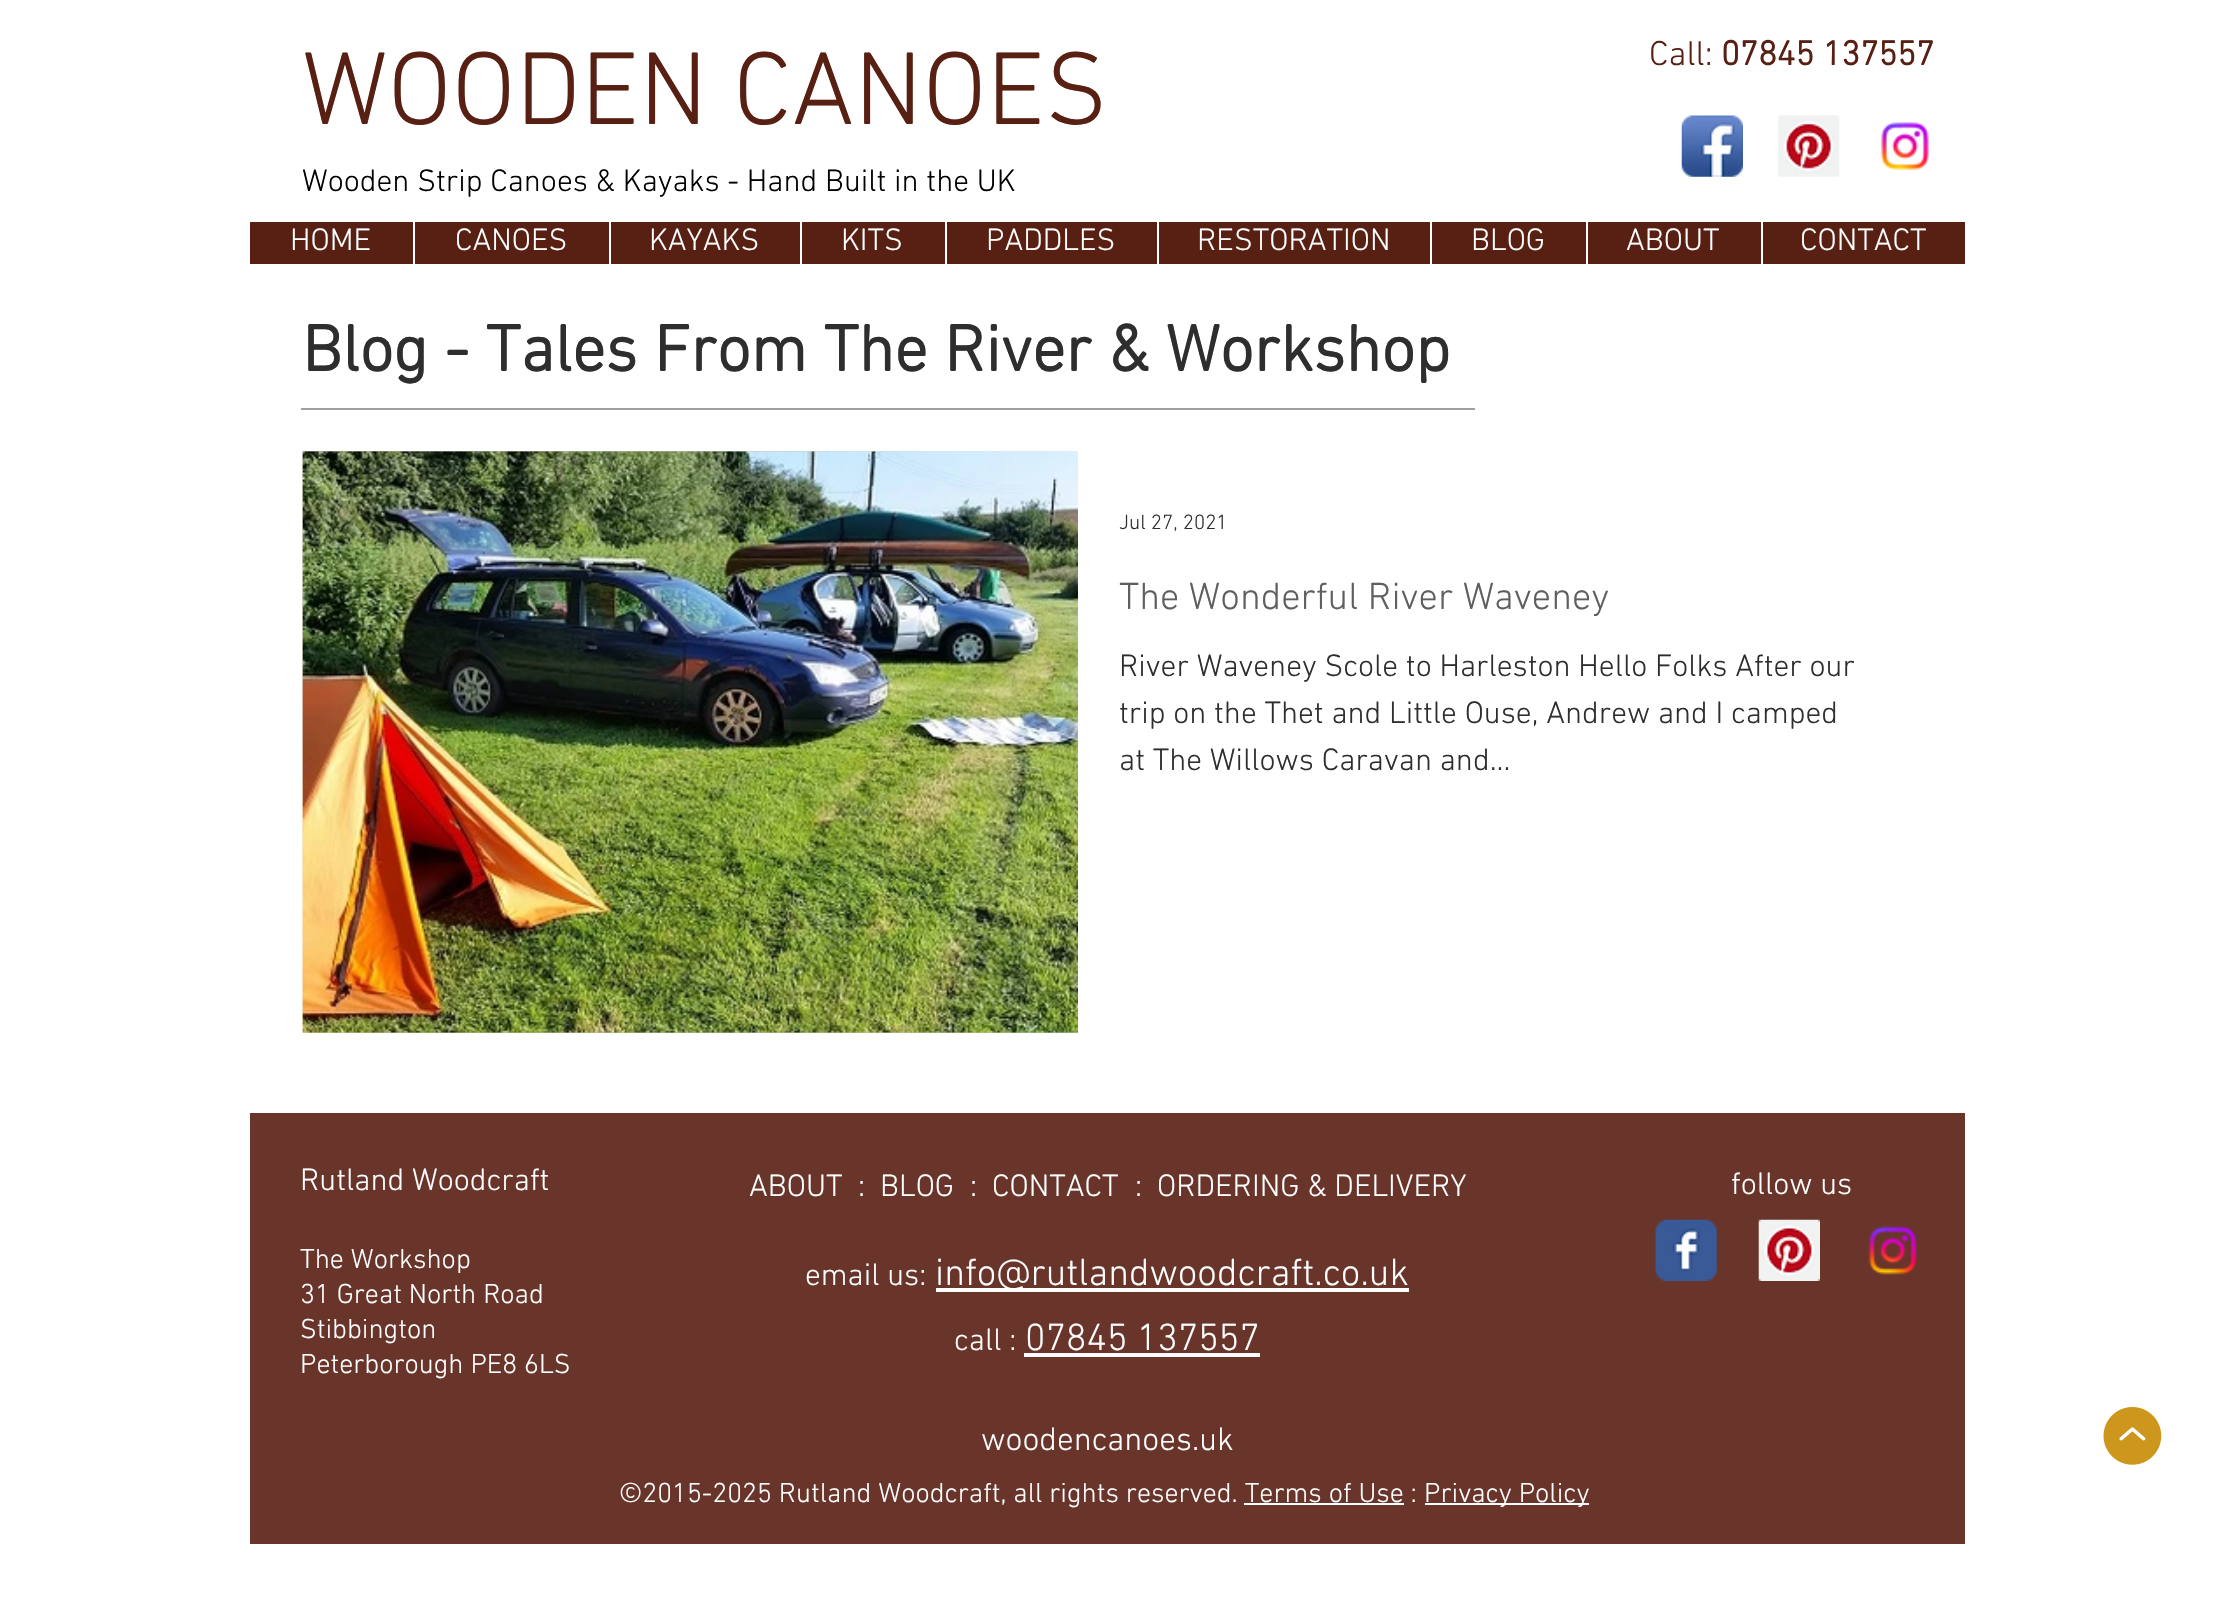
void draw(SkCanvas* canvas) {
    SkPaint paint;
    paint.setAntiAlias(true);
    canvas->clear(0xFFFFFFFF);
    SkFont font1(fontMgr->matchFamilyStyle("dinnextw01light", SkFontStyle(300, SkFontStyle::kNormal_Width, SkFontStyle::kUpright_Slant)), 105);
    font1.setSubpixel(true);
    paint.setColor(0xFF581F13);
    canvas->drawString("WOODEN CANOES", 302, 124, font1, paint);
    SkFont font2(fontMgr->matchFamilyStyle("dinnextw01light", SkFontStyle(300, SkFontStyle::kNormal_Width, SkFontStyle::kUpright_Slant)), 35);
    font2.setSubpixel(true);
    canvas->drawString("Call:", 1649, 65, font2, paint);
    SkFont font3(fontMgr->matchFamilyStyle("dinnextw01light", SkFontStyle::Bold()), 35);
    font3.setSubpixel(true);
    canvas->drawString("07845 137557", 1721, 65, font3, paint);
    canvas->drawImageRect(SkImages::DeferredFromEncodedData(SkData::MakeFromFileName("img1.png")), SkRect::MakeXYWH(1681, 115, 62, 62), SkSamplingOptions());
    canvas->drawImageRect(SkImages::DeferredFromEncodedData(SkData::MakeFromFileName("img2.png")), SkRect::MakeXYWH(1778, 115, 62, 62), SkSamplingOptions());
    canvas->drawImageRect(SkImages::DeferredFromEncodedData(SkData::MakeFromFileName("img3.png")), SkRect::MakeXYWH(1880, 122, 49, 49), SkSamplingOptions());
    SkFont font4(fontMgr->matchFamilyStyle("dinnextw01light", SkFontStyle(300, SkFontStyle::kNormal_Width, SkFontStyle::kUpright_Slant)), 31.5f);
    font4.setSubpixel(true);
    paint.setColor(0xFF000000);
    canvas->drawString("Wooden Strip Canoes & Kayaks - Hand Built in the UK", 302, 191, font4, paint);
    paint.setColor(0xFF581F13);
    canvas->drawRect(SkRect::MakeXYWH(250, 222, 1715, 42), paint);
    paint.setColor(0xFFFFFFFF);
    canvas->drawString("HOME", 290, 250, font4, paint);
    canvas->drawRect(SkRect::MakeXYWH(413, 222, 2, 42), paint);
    canvas->drawString("CANOES", 455, 250, font4, paint);
    canvas->drawRect(SkRect::MakeXYWH(609, 222, 2, 42), paint);
    canvas->drawString("KAYAKS", 649, 250, font4, paint);
    canvas->drawRect(SkRect::MakeXYWH(800, 222, 2, 42), paint);
    canvas->drawString("KITS", 841, 250, font4, paint);
    canvas->drawRect(SkRect::MakeXYWH(945, 222, 2, 42), paint);
    canvas->drawString("PADDLES", 986, 250, font4, paint);
    canvas->drawRect(SkRect::MakeXYWH(1157, 222, 2, 42), paint);
    canvas->drawString("RESTORATION", 1197, 250, font4, paint);
    canvas->drawRect(SkRect::MakeXYWH(1430, 222, 2, 42), paint);
    canvas->drawString("BLOG", 1471, 250, font4, paint);
    canvas->drawRect(SkRect::MakeXYWH(1586, 222, 2, 42), paint);
    canvas->drawString("ABOUT", 1626, 250, font4, paint);
    canvas->drawRect(SkRect::MakeXYWH(1761, 222, 2, 42), paint);
    canvas->drawString("CONTACT", 1800, 250, font4, paint);
    SkFont font5(fontMgr->matchFamilyStyle("dinnextw01light", SkFontStyle::Bold()), 66.5f);
    font5.setSubpixel(true);
    paint.setColor(0xFF2F2E2E);
    canvas->drawString("Blog - Tales From The River & Workshop", 302, 371, font5, paint);
    paint.setColor(0xFFA0A09F);
    canvas->drawRect(SkRect::MakeXYWH(301, 408, 1174, 2), paint);
    canvas->drawImageRect(SkImages::DeferredFromEncodedData(SkData::MakeFromFileName("img4.png")), SkRect::MakeXYWH(302, 451, 776, 582), SkSamplingOptions());
    canvas->drawImageRect(SkImages::DeferredFromEncodedData(SkData::MakeFromFileName("img5.png")), SkRect::MakeXYWH(302, 451, 776, 582), SkSamplingOptions());
    SkFont font6(fontMgr->matchFamilyStyle("dinnextw01light", SkFontStyle(300, SkFontStyle::kNormal_Width, SkFontStyle::kUpright_Slant)), 21);
    font6.setSubpixel(true);
    paint.setColor(0xFF2F2E2E);
    canvas->drawString("Jul 27, 2021", 1119, 529, font6, paint);
    SkFont font7(fontMgr->matchFamilyStyle("dinnextw01light", SkFontStyle(300, SkFontStyle::kNormal_Width, SkFontStyle::kUpright_Slant)), 38.5f);
    font7.setSubpixel(true);
    paint.setColor(0xFF605E5E);
    canvas->drawString("The Wonderful River Waveney", 1119, 609, font7, paint);
    paint.setColor(0xFF2F2E2E);
    canvas->drawString("River Waveney Scole to Harleston Hello Folks After our", 1119, 676, font4, paint);
    canvas->drawString("trip on the Thet and Little Ouse, Andrew and I camped", 1119, 723, font4, paint);
    canvas->drawString("at The Willows Caravan and...", 1119, 770, font4, paint);
    paint.setColor(0xFF69352B);
    canvas->drawRect(SkRect::MakeXYWH(250, 1113, 1715, 431), paint);
    paint.setColor(0xFFFFFFFF);
    canvas->drawString("Rutland Woodcraft", 300, 1190, font4, paint);
    canvas->drawString("ABOUT", 749, 1196, font4, paint);
    canvas->drawString(":", 858, 1196, font4, paint);
    canvas->drawString("BLOG", 880, 1196, font4, paint);
    canvas->drawString(":", 970, 1196, font4, paint);
    canvas->drawString("CONTACT", 992, 1196, font4, paint);
    canvas->drawString(":", 1135, 1196, font4, paint);
    canvas->drawString("ORDERING & DELIVERY", 1157, 1196, font4, paint);
    canvas->drawString("follow us", 1731, 1194, font4, paint);
    SkFont font8(fontMgr->matchFamilyStyle("dinnextw01light", SkFontStyle(300, SkFontStyle::kNormal_Width, SkFontStyle::kUpright_Slant)), 28);
    font8.setSubpixel(true);
    canvas->drawString("The Workshop", 300, 1268, font8, paint);
    canvas->drawString("31 Great North Road", 300, 1303, font8, paint);
    canvas->drawString("Stibbington", 300, 1338, font8, paint);
    canvas->drawString("Peterborough PE8 6LS", 300, 1373, font8, paint);
    canvas->drawString("email us:", 805, 1285, font4, paint);
    canvas->drawRect(SkRect::MakeXYWH(936, 1288, 473, 4), paint);
    canvas->drawString("info@rutlandwoodcraft.co.uk", 935, 1285, font7, paint);
    canvas->drawString("call :", 954, 1350, font4, paint);
    canvas->drawString("07845 137557", 1025, 1350, font7, paint);
    canvas->drawRect(SkRect::MakeXYWH(1024, 1353, 236, 4), paint);
    canvas->drawImageRect(SkImages::DeferredFromEncodedData(SkData::MakeFromFileName("img6.png")), SkRect::MakeXYWH(1655, 1219, 62, 62), SkSamplingOptions());
    canvas->drawImageRect(SkImages::DeferredFromEncodedData(SkData::MakeFromFileName("img7.png")), SkRect::MakeXYWH(1758, 1219, 62, 62), SkSamplingOptions());
    canvas->drawImageRect(SkImages::DeferredFromEncodedData(SkData::MakeFromFileName("img8.png")), SkRect::MakeXYWH(1868, 1226, 49, 49), SkSamplingOptions());
    SkFont font9(fontMgr->matchFamilyStyle("dinnextw01light", SkFontStyle(300, SkFontStyle::kNormal_Width, SkFontStyle::kUpright_Slant)), 33.25f);
    font9.setSubpixel(true);
    canvas->drawString("woodencanoes.uk", 981, 1450, font9, paint);
    canvas->drawString("©2015-2025 Rutland Woodcraft, all rights reserved. Terms of Use :", 619, 1502, font8, paint);
    canvas->drawRect(SkRect::MakeXYWH(1244, 1503, 160, 2), paint);
    canvas->drawRect(SkRect::MakeXYWH(1425, 1503, 164, 2), paint);
    canvas->drawString("Privacy Policy", 1424, 1502, font8, paint);
    canvas->drawImageRect(SkImages::DeferredFromEncodedData(SkData::MakeFromFileName("img9.png")), SkRect::MakeXYWH(2103, 1407, 59, 58), SkSamplingOptions());
}
